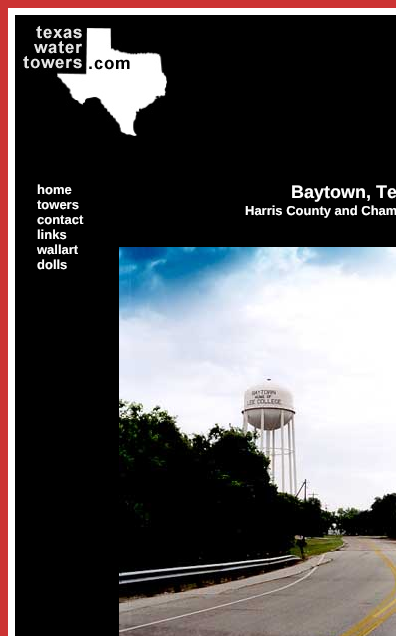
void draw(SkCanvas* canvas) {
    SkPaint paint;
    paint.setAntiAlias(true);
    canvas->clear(0xFFCC3333);
    paint.setColor(0xFFFFFFFF);
    canvas->drawRect(SkRect::MakeXYWH(8, 8, 388, 628), paint);
    paint.setColor(0xFF000000);
    canvas->drawRect(SkRect::MakeXYWH(15, 15, 381, 621), paint);
    canvas->drawImageRect(SkImages::DeferredFromEncodedData(SkData::MakeFromFileName("img1.png")), SkRect::MakeXYWH(19, 25, 149, 112), SkSamplingOptions());
    SkFont font1(fontMgr->matchFamilyStyle("Liberation Sans", SkFontStyle::Bold()), 13);
    font1.setSubpixel(true);
    paint.setColor(0xFFFFFFFF);
    canvas->drawString("home", 37, 194, font1, paint);
    canvas->drawString("towers", 37, 209, font1, paint);
    canvas->drawString("contact", 37, 224, font1, paint);
    canvas->drawString("links", 37, 239, font1, paint);
    canvas->drawString("wallart", 37, 254, font1, paint);
    canvas->drawString("dolls", 37, 269, font1, paint);
    SkFont font2(fontMgr->matchFamilyStyle("Liberation Sans", SkFontStyle::Bold()), 18);
    font2.setSubpixel(true);
    canvas->drawString("Baytown, Te", 291, 198, font2, paint);
    canvas->drawString("Harris County and Cham", 245, 215, font1, paint);
    canvas->drawImageRect(SkImages::DeferredFromEncodedData(SkData::MakeFromFileName("img2.png")), SkRect::MakeXYWH(119, 247, 277, 389), SkSamplingOptions());
}
